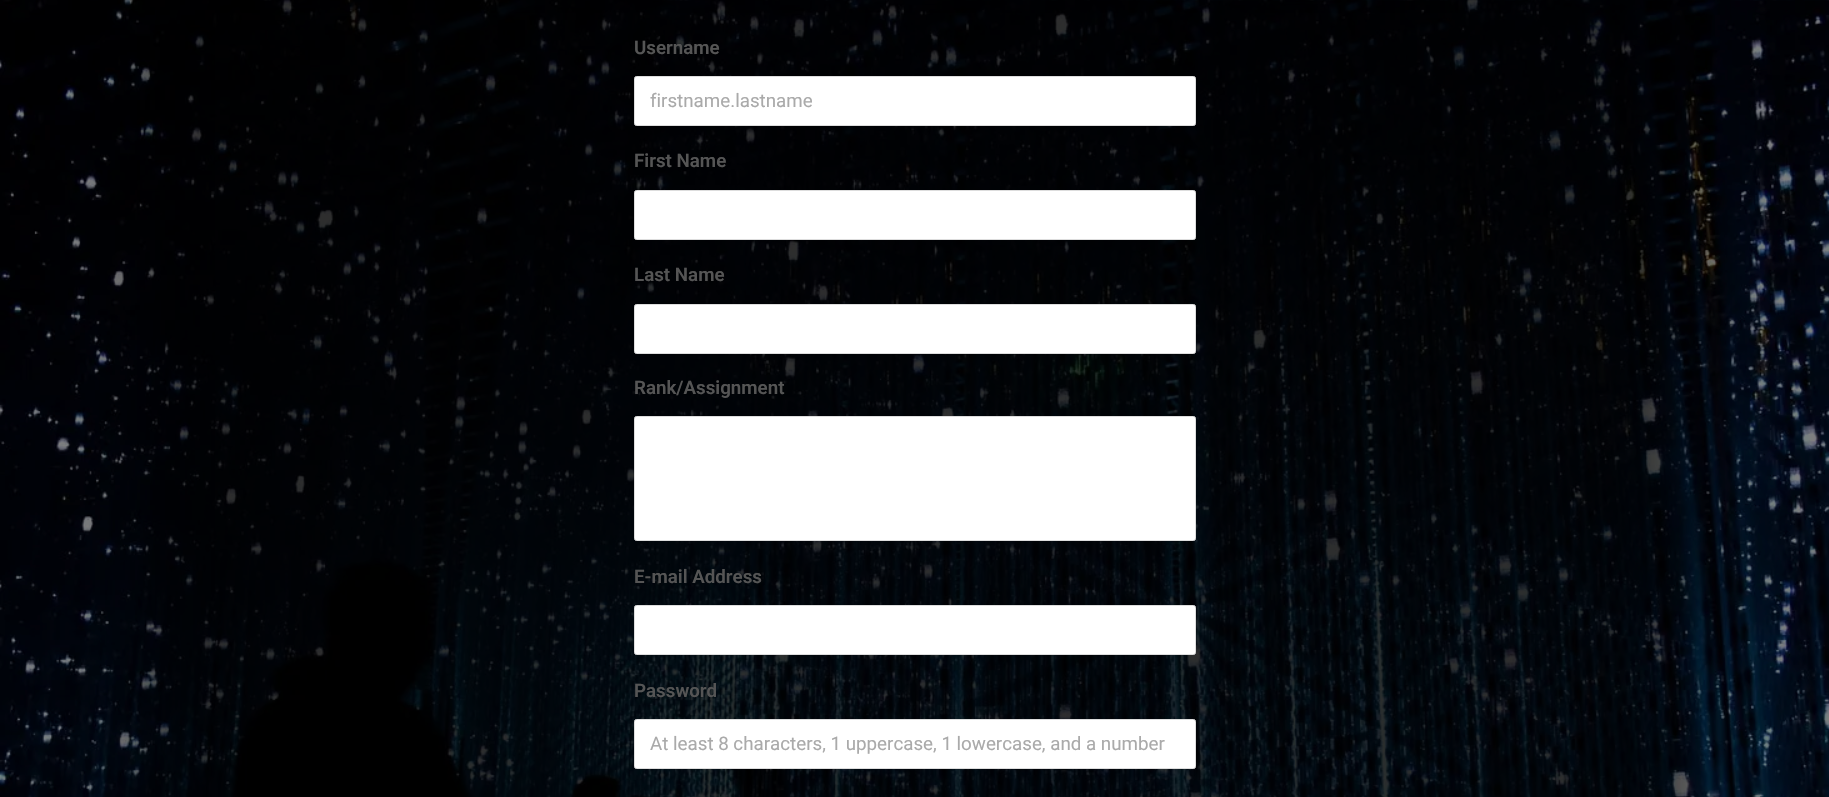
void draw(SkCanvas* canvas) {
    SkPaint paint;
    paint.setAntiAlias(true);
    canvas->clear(0xFFFFFFFF);
    canvas->drawImageRect(SkImages::DeferredFromEncodedData(SkData::MakeFromFileName("img1.png")), SkRect::MakeXYWH(0, 0, 1829, 797), SkSamplingOptions());
    canvas->save();
    canvas->clipPath(SkPathBuilder(SkPathFillType::kEvenOdd).moveTo(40, 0).lineTo(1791, 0).lineTo(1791, 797).lineTo(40, 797).close().moveTo(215, 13).lineTo(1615, 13).lineTo(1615, 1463).lineTo(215, 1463).close().detach(), true);
    paint.setColor(0xA6000000);
    paint.setMaskFilter(SkMaskFilter::MakeBlur(kNormal_SkBlurStyle, 35.5f));
    canvas->drawRect(SkRect::MakeXYWH(148, -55, 1535, 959), paint);
    paint.setMaskFilter(nullptr);
    canvas->restore();
    paint.setColor(0xA3000000);
    canvas->drawRect(SkRect::MakeXYWH(215, 13, 1400, 784), paint);
    SkFont font1(fontMgr->matchFamilyStyle("Roboto", SkFontStyle(600, SkFontStyle::kNormal_Width, SkFontStyle::kUpright_Slant)), 18.75f);
    font1.setSubpixel(true);
    paint.setColor(0xFF555555);
    canvas->drawString("Username", 634, 54, font1, paint);
    paint.setColor(0xFFFFFFFF);
    canvas->drawRoundRect(SkRect::MakeXYWH(634.5f, 76.5f, 561, 49), 2, 2, paint);
    paint.setStyle(SkPaint::kStroke_Style);
    paint.setStrokeWidth(1);
    paint.setColor(0xFFDDDDDD);
    canvas->drawRoundRect(SkRect::MakeXYWH(634.5f, 76.5f, 561, 49), 2, 2, paint);
    SkFont font2(fontMgr->matchFamilyStyle("Roboto", SkFontStyle::Normal()), 18.75f);
    font2.setSubpixel(true);
    paint.setStyle(SkPaint::kFill_Style);
    paint.setColor(0xFFAAAAAA);
    canvas->drawString("firstname.lastname", 650, 107, font2, paint);
    paint.setColor(0xFF555555);
    canvas->drawString("First Name", 634, 167, font1, paint);
    paint.setColor(0xFFFFFFFF);
    canvas->drawRoundRect(SkRect::MakeXYWH(634.5f, 190.5f, 561, 49), 2, 2, paint);
    paint.setStyle(SkPaint::kStroke_Style);
    paint.setColor(0xFFDDDDDD);
    canvas->drawRoundRect(SkRect::MakeXYWH(634.5f, 190.5f, 561, 49), 2, 2, paint);
    paint.setStyle(SkPaint::kFill_Style);
    paint.setColor(0xFF555555);
    canvas->drawString("Last Name", 634, 281, font1, paint);
    paint.setColor(0xFFFFFFFF);
    canvas->drawRoundRect(SkRect::MakeXYWH(634.5f, 304.5f, 561, 49), 2, 2, paint);
    paint.setStyle(SkPaint::kStroke_Style);
    paint.setColor(0xFFDDDDDD);
    canvas->drawRoundRect(SkRect::MakeXYWH(634.5f, 304.5f, 561, 49), 2, 2, paint);
    paint.setStyle(SkPaint::kFill_Style);
    paint.setColor(0xFF555555);
    canvas->drawString("Rank/Assignment", 634, 394, font1, paint);
    paint.setColor(0xFFFFFFFF);
    canvas->drawRoundRect(SkRect::MakeXYWH(634.5f, 416.5f, 561, 124), 2, 2, paint);
    paint.setStyle(SkPaint::kStroke_Style);
    paint.setColor(0xFFDDDDDD);
    canvas->drawRoundRect(SkRect::MakeXYWH(634.5f, 416.5f, 561, 124), 2, 2, paint);
    paint.setStyle(SkPaint::kFill_Style);
    paint.setColor(0xFF555555);
    canvas->drawString("E-mail Address", 634, 583, font1, paint);
    paint.setColor(0xFFFFFFFF);
    canvas->drawRoundRect(SkRect::MakeXYWH(634.5f, 605.5f, 561, 49), 2, 2, paint);
    paint.setStyle(SkPaint::kStroke_Style);
    paint.setColor(0xFFDDDDDD);
    canvas->drawRoundRect(SkRect::MakeXYWH(634.5f, 605.5f, 561, 49), 2, 2, paint);
    paint.setStyle(SkPaint::kFill_Style);
    paint.setColor(0xFF555555);
    canvas->drawString("Password", 634, 697, font1, paint);
    paint.setColor(0xFFFFFFFF);
    canvas->drawRoundRect(SkRect::MakeXYWH(634.5f, 719.5f, 561, 49), 2, 2, paint);
    paint.setStyle(SkPaint::kStroke_Style);
    paint.setColor(0xFFDDDDDD);
    canvas->drawRoundRect(SkRect::MakeXYWH(634.5f, 719.5f, 561, 49), 2, 2, paint);
    paint.setStyle(SkPaint::kFill_Style);
    paint.setColor(0xFFAAAAAA);
    canvas->drawString("At least 8 characters, 1 uppercase, 1 lowercase, and a number", 650, 750, font2, paint);
}
